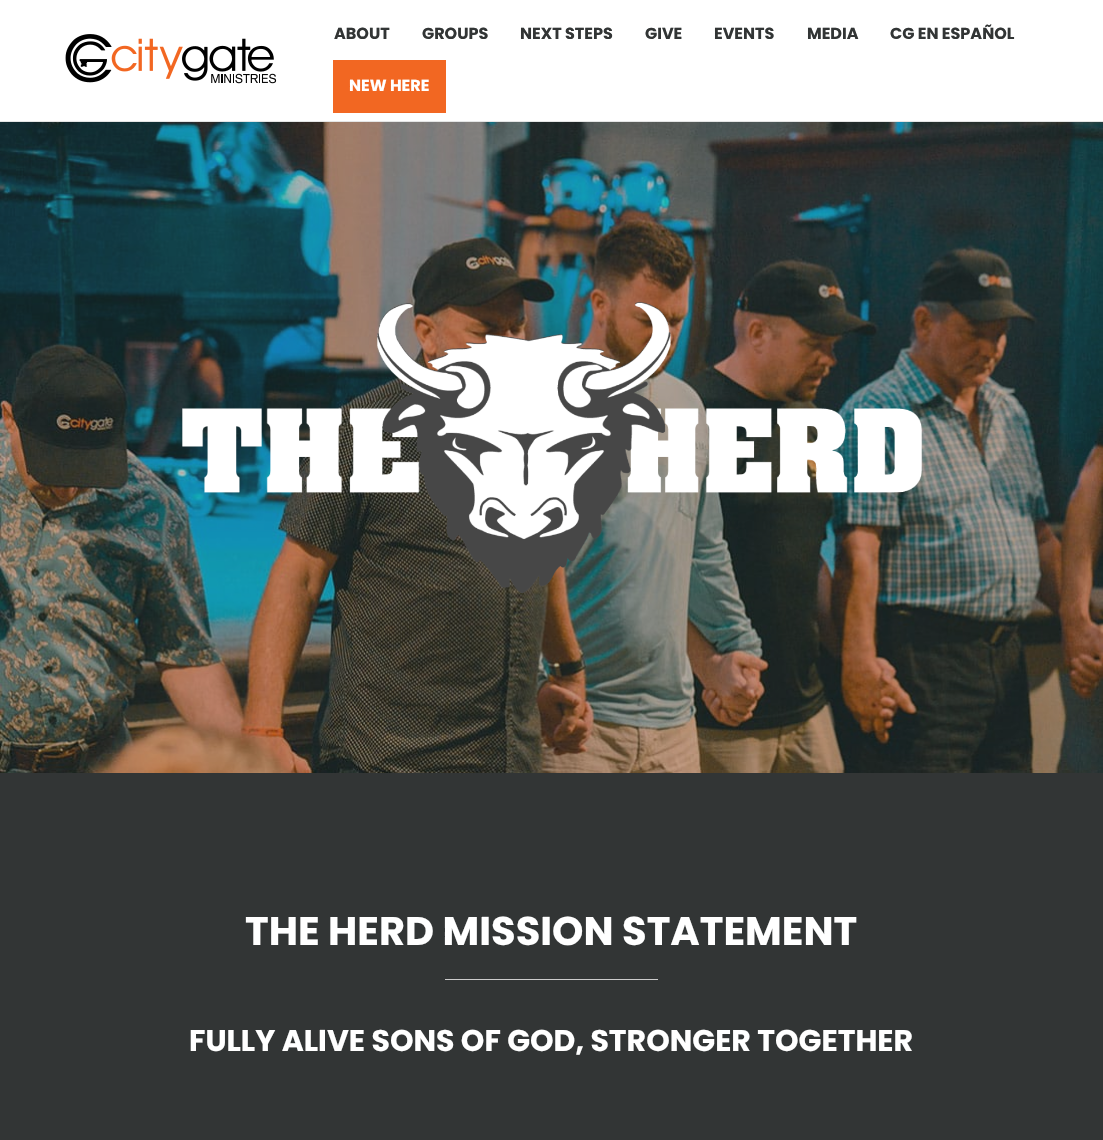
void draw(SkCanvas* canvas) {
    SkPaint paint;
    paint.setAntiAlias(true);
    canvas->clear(0xFFFFFFFF);
    paint.setColor(0xFFE4E5E5);
    canvas->drawRect(SkRect::MakeXYWH(0, 121, 1103, 1), paint);
    canvas->drawImageRect(SkImages::DeferredFromEncodedData(SkData::MakeFromFileName("img1.png")), SkRect::MakeXYWH(65, 34, 212, 50), SkSamplingOptions());
    SkFont font1(fontMgr->matchFamilyStyle("Poppins", SkFontStyle::Bold()), 16);
    font1.setSubpixel(true);
    paint.setColor(0xFF323535);
    canvas->drawString("ABOUT", 334, 39, font1, paint);
    canvas->drawString("GROUPS", 422, 39, font1, paint);
    canvas->drawString("NEXT STEPS", 520, 39, font1, paint);
    canvas->drawString("GIVE", 645, 39, font1, paint);
    canvas->drawString("EVENTS", 714, 39, font1, paint);
    canvas->drawString("MEDIA", 807, 39, font1, paint);
    canvas->drawString("CG EN ESPAÑOL", 890, 39, font1, paint);
    paint.setColor(0xFFF26722);
    canvas->drawRect(SkRect::MakeXYWH(333, 60, 113, 53), paint);
    paint.setColor(0xFFFFFFFF);
    canvas->drawString("NEW HERE", 349, 91, font1, paint);
    canvas->drawImageRect(SkImages::DeferredFromEncodedData(SkData::MakeFromFileName("img2.png")), SkRect::MakeXYWH(0, 122, 1103, 651), SkSamplingOptions());
    canvas->drawImageRect(SkImages::DeferredFromEncodedData(SkData::MakeFromFileName("img3.png")), SkRect::MakeXYWH(182, 302, 740, 291), SkSamplingOptions());
    paint.setColor(0xFF323535);
    canvas->drawRect(SkRect::MakeXYWH(0, 773, 1103, 367), paint);
    SkFont font2(fontMgr->matchFamilyStyle("Poppins", SkFontStyle::Bold()), 40);
    font2.setSubpixel(true);
    paint.setColor(0xFFFFFFFF);
    canvas->drawString("THE HERD MISSION STATEMENT", 245, 945, font2, paint);
    paint.setColor(0xFFCCCCCC);
    canvas->drawRect(SkRect::MakeXYWH(445, 979, 213, 1), paint);
    SkFont font3(fontMgr->matchFamilyStyle("Poppins", SkFontStyle::Bold()), 30);
    font3.setSubpixel(true);
    paint.setColor(0xFFFFFFFF);
    canvas->drawString("FULLY ALIVE SONS OF GOD, STRONGER TOGETHER", 189, 1051, font3, paint);
}
